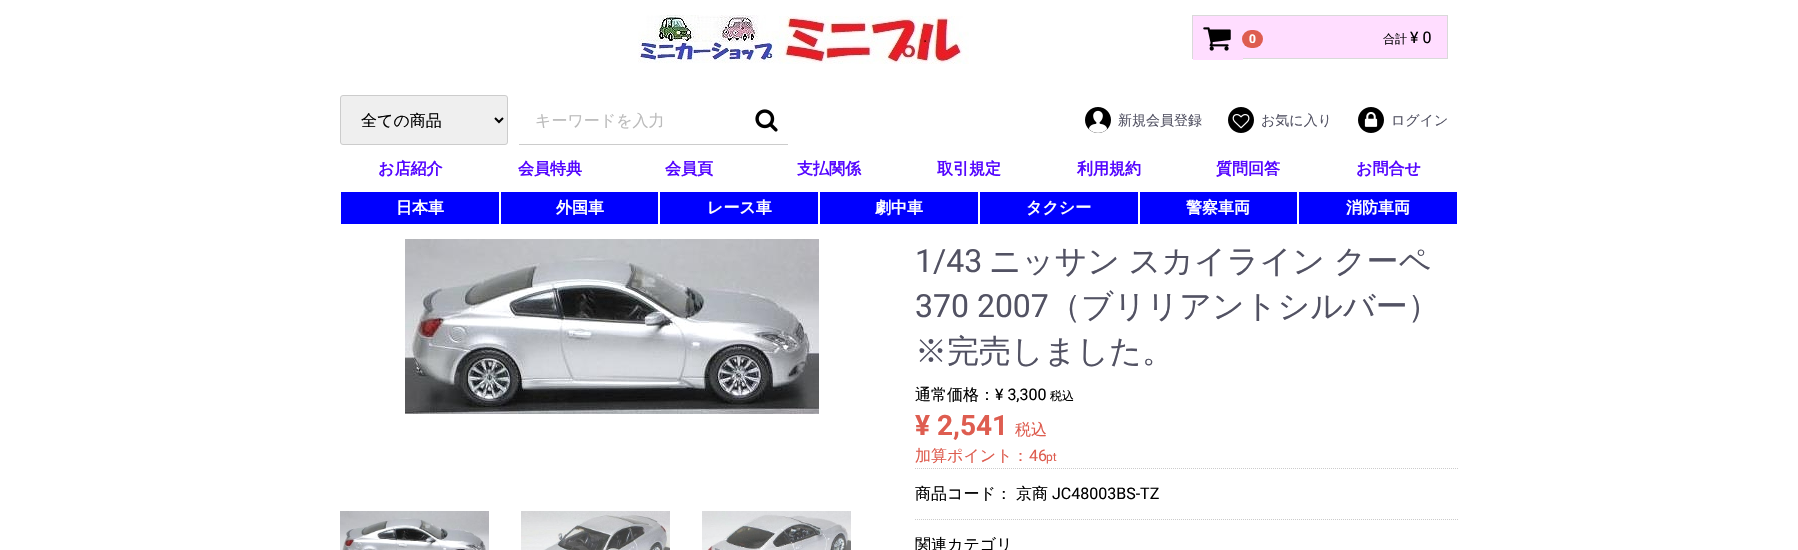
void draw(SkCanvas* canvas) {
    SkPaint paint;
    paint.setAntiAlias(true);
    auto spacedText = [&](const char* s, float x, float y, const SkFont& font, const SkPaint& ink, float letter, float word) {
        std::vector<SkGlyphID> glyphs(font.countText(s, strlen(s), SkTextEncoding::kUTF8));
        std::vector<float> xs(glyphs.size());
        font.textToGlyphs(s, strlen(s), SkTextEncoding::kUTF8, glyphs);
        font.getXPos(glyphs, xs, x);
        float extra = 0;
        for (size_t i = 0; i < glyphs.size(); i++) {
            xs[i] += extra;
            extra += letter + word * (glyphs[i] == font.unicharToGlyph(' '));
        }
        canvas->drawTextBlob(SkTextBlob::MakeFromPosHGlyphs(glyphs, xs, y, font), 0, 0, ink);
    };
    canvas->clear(0xFFFFFFFF);
    canvas->drawImageRect(SkImages::DeferredFromEncodedData(SkData::MakeFromFileName("img1.png")), SkRect::MakeXYWH(638, 15, 141, 49), SkSamplingOptions());
    canvas->drawImageRect(SkImages::DeferredFromEncodedData(SkData::MakeFromFileName("img2.png")), SkRect::MakeXYWH(779, 16, 190, 48), SkSamplingOptions());
    paint.setColor(0xFFFFDDFF);
    canvas->drawRect(SkRect::MakeXYWH(1243, 16, 204, 42), paint);
    paint.setStyle(SkPaint::kStroke_Style);
    paint.setStrokeWidth(1);
    paint.setColor(0xFFD9D9D9);
    canvas->drawRect(SkRect::MakeXYWH(1192.5f, 15.5f, 255, 43), paint);
    paint.setStyle(SkPaint::kFill_Style);
    paint.setColor(0xFFFFDDFF);
    canvas->drawRect(SkRect::MakeXYWH(1193, 16, 50, 44), paint);
    canvas->drawImageRect(SkImages::DeferredFromEncodedData(SkData::MakeFromFileName("img3.png")), SkRect::MakeXYWH(1203, 27, 28, 24), SkSamplingOptions());
    paint.setColor(0xFFDE5D50);
    canvas->drawRoundRect(SkRect::MakeXYWH(1242, 30, 21, 18), 9, 9, paint);
    SkFont font1(fontMgr->matchFamilyStyle("Roboto", SkFontStyle::Bold()), 12);
    font1.setSubpixel(true);
    paint.setColor(0xFFFFFFFF);
    canvas->drawString("0", 1249, 43, font1, paint);
    SkFont font2(fontMgr->matchFamilyStyle("WenQuanYi Zen Hei", SkFontStyle(500, SkFontStyle::kNormal_Width, SkFontStyle::kUpright_Slant)), 12);
    font2.setSubpixel(true);
    paint.setColor(0xFF000000);
    canvas->drawString("合計", 1383, 43, font2, paint);
    SkFont font3(fontMgr->matchFamilyStyle("Roboto", SkFontStyle::Normal()), 16);
    font3.setSubpixel(true);
    canvas->drawString("¥ 0", 1410, 43, font3, paint);
    paint.setColor(0xFFEFEFEF);
    canvas->drawRoundRect(SkRect::MakeXYWH(340.5f, 95.5f, 167, 49), 2.5f, 2.5f, paint);
    paint.setStyle(SkPaint::kStroke_Style);
    paint.setColor(0xFFCCCCCC);
    canvas->drawRoundRect(SkRect::MakeXYWH(340.5f, 95.5f, 167, 49), 2.5f, 2.5f, paint);
    paint.setStrokeWidth(2);
    paint.setColor(0xFF000000);
    canvas->drawPath(SkPathBuilder().moveTo(495, 118).lineTo(499, 122).lineTo(503, 118).detach(), paint);
    SkFont font4(fontMgr->matchFamilyStyle("WenQuanYi Zen Hei", SkFontStyle(500, SkFontStyle::kNormal_Width, SkFontStyle::kUpright_Slant)), 16);
    font4.setSubpixel(true);
    paint.setStyle(SkPaint::kFill_Style);
    canvas->drawString("全ての商品", 361, 126, font4, paint);
    paint.setColor(0xFFCCCCCC);
    canvas->drawRect(SkRect::MakeXYWH(519, 144, 269, 1), paint);
    paint.setColor(0xFFBBBBBB);
    canvas->drawString("キーワードを入力", 535, 126, font4, paint);
    canvas->drawImageRect(SkImages::DeferredFromEncodedData(SkData::MakeFromFileName("img4.png")), SkRect::MakeXYWH(755, 109, 23, 23), SkSamplingOptions());
    canvas->drawImageRect(SkImages::DeferredFromEncodedData(SkData::MakeFromFileName("img5.png")), SkRect::MakeXYWH(1085, 107, 26, 26), SkSamplingOptions());
    SkFont font5(fontMgr->matchFamilyStyle("WenQuanYi Zen Hei", SkFontStyle(500, SkFontStyle::kNormal_Width, SkFontStyle::kUpright_Slant)), 14);
    font5.setSubpixel(true);
    paint.setColor(0xFF525263);
    canvas->drawString("新規会員登録", 1118, 125, font5, paint);
    canvas->drawImageRect(SkImages::DeferredFromEncodedData(SkData::MakeFromFileName("img6.png")), SkRect::MakeXYWH(1228, 107, 26, 26), SkSamplingOptions());
    canvas->drawString("お気に入り", 1261, 125, font5, paint);
    canvas->drawImageRect(SkImages::DeferredFromEncodedData(SkData::MakeFromFileName("img7.png")), SkRect::MakeXYWH(1358, 107, 26, 26), SkSamplingOptions());
    canvas->drawString("ログイン", 1391, 125, font5, paint);
    SkFont font6(fontMgr->matchFamilyStyle("WenQuanYi Zen Hei", SkFontStyle::Bold()), 16);
    font6.setSubpixel(true);
    paint.setColor(0xFF5507FF);
    canvas->drawString("お店紹介", 378, 174, font6, paint);
    canvas->drawString("会員特典", 518, 174, font6, paint);
    canvas->drawString("会員頁", 665, 174, font6, paint);
    canvas->drawString("支払関係", 797, 174, font6, paint);
    canvas->drawString("取引規定", 937, 174, font6, paint);
    canvas->drawString("利用規約", 1077, 174, font6, paint);
    canvas->drawString("質問回答", 1216, 174, font6, paint);
    canvas->drawString("お問合せ", 1356, 174, font6, paint);
    paint.setColor(0xFF0000FF);
    canvas->drawRect(SkRect::MakeXYWH(341, 192, 158, 32), paint);
    paint.setColor(0xFFFFFFFF);
    canvas->drawString("日本車", 396, 213, font6, paint);
    paint.setColor(0xFF0000FF);
    canvas->drawRect(SkRect::MakeXYWH(501, 192, 157, 32), paint);
    paint.setColor(0xFFFFFFFF);
    canvas->drawString("外国車", 556, 213, font6, paint);
    paint.setColor(0xFF0000FF);
    canvas->drawRect(SkRect::MakeXYWH(660, 192, 158, 32), paint);
    paint.setColor(0xFFFFFFFF);
    canvas->drawString("レース車", 707, 213, font6, paint);
    paint.setColor(0xFF0000FF);
    canvas->drawRect(SkRect::MakeXYWH(820, 192, 158, 32), paint);
    paint.setColor(0xFFFFFFFF);
    canvas->drawString("劇中車", 875, 213, font6, paint);
    paint.setColor(0xFF0000FF);
    canvas->drawRect(SkRect::MakeXYWH(980, 192, 158, 32), paint);
    paint.setColor(0xFFFFFFFF);
    canvas->drawString("タクシー", 1026, 213, font6, paint);
    paint.setColor(0xFF0000FF);
    canvas->drawRect(SkRect::MakeXYWH(1140, 192, 157, 32), paint);
    paint.setColor(0xFFFFFFFF);
    canvas->drawString("警察車両", 1186, 213, font6, paint);
    paint.setColor(0xFF0000FF);
    canvas->drawRect(SkRect::MakeXYWH(1299, 192, 158, 32), paint);
    paint.setColor(0xFFFFFFFF);
    canvas->drawString("消防車両", 1346, 213, font6, paint);
    canvas->drawImageRect(SkImages::DeferredFromEncodedData(SkData::MakeFromFileName("img8.png")), SkRect::MakeXYWH(405, 239, 414, 175), SkSamplingOptions());
    canvas->drawImageRect(SkImages::DeferredFromEncodedData(SkData::MakeFromFileName("img9.png")), SkRect::MakeXYWH(340, 511, 149, 39), SkSamplingOptions());
    canvas->drawImageRect(SkImages::DeferredFromEncodedData(SkData::MakeFromFileName("img10.png")), SkRect::MakeXYWH(521, 511, 149, 39), SkSamplingOptions());
    canvas->drawImageRect(SkImages::DeferredFromEncodedData(SkData::MakeFromFileName("img11.png")), SkRect::MakeXYWH(702, 511, 149, 39), SkSamplingOptions());
    SkFont font7(fontMgr->matchFamilyStyle("Roboto", SkFontStyle::Normal()), 32);
    font7.setSubpixel(true);
    paint.setColor(0xFF525263);
    canvas->drawString("1/43", 915, 272, font7, paint);
    SkFont font8(fontMgr->matchFamilyStyle("WenQuanYi Zen Hei", SkFontStyle(500, SkFontStyle::kNormal_Width, SkFontStyle::kUpright_Slant)), 32);
    font8.setSubpixel(true);
    spacedText("ニッサン スカイライン クーペ", 989, 272, font8, paint, 0, -1);
    canvas->drawString("370 2007", 915, 317, font7, paint);
    canvas->drawString("（ブリリアントシルバー）", 1049, 317, font8, paint);
    canvas->drawString("※完売しました。", 915, 362, font8, paint);
    paint.setColor(0xFF000000);
    canvas->drawString("通常価格：", 915, 400, font4, paint);
    canvas->drawString("¥ 3,300", 995, 400, font3, paint);
    canvas->drawString("税込", 1050, 400, font2, paint);
    SkFont font9(fontMgr->matchFamilyStyle("Roboto", SkFontStyle::Bold()), 28);
    font9.setSubpixel(true);
    paint.setColor(0xFFDE5D50);
    canvas->drawString("¥ 2,541", 915, 435, font9, paint);
    canvas->drawString("税込", 1015, 435, font4, paint);
    canvas->drawString("加算ポイント：", 915, 461, font4, paint);
    canvas->drawString("46", 1029, 461, font3, paint);
    SkFont font10(fontMgr->matchFamilyStyle("Roboto", SkFontStyle::Normal()), 12);
    font10.setSubpixel(true);
    canvas->drawString("pt", 1046, 461, font10, paint);
    paint.setStyle(SkPaint::kStroke_Style);
    paint.setStrokeWidth(1);
    paint.setColor(0xFFCCCCCC);
    paint.setPathEffect(SkDashPathEffect::Make({{1, 1}}, 0));
    canvas->drawPath(SkPathBuilder().moveTo(915, 468.5f).lineTo(1458, 468.5f).detach(), paint);
    paint.setPathEffect(nullptr);
    paint.setStyle(SkPaint::kFill_Style);
    paint.setColor(0xFF000000);
    canvas->drawString("商品コード：", 915, 499, font4, paint);
    canvas->drawString("京商", 1016, 499, font4, paint);
    canvas->drawString("JC48003BS-TZ", 1052, 499, font3, paint);
    paint.setStyle(SkPaint::kStroke_Style);
    paint.setColor(0xFFCCCCCC);
    paint.setPathEffect(SkDashPathEffect::Make({{1, 1}}, 0));
    canvas->drawPath(SkPathBuilder().moveTo(915, 519.5f).lineTo(1458, 519.5f).detach(), paint);
    paint.setPathEffect(nullptr);
    paint.setStyle(SkPaint::kFill_Style);
    paint.setColor(0xFF000000);
    canvas->drawString("関連カテゴリ", 915, 550, font4, paint);
}
